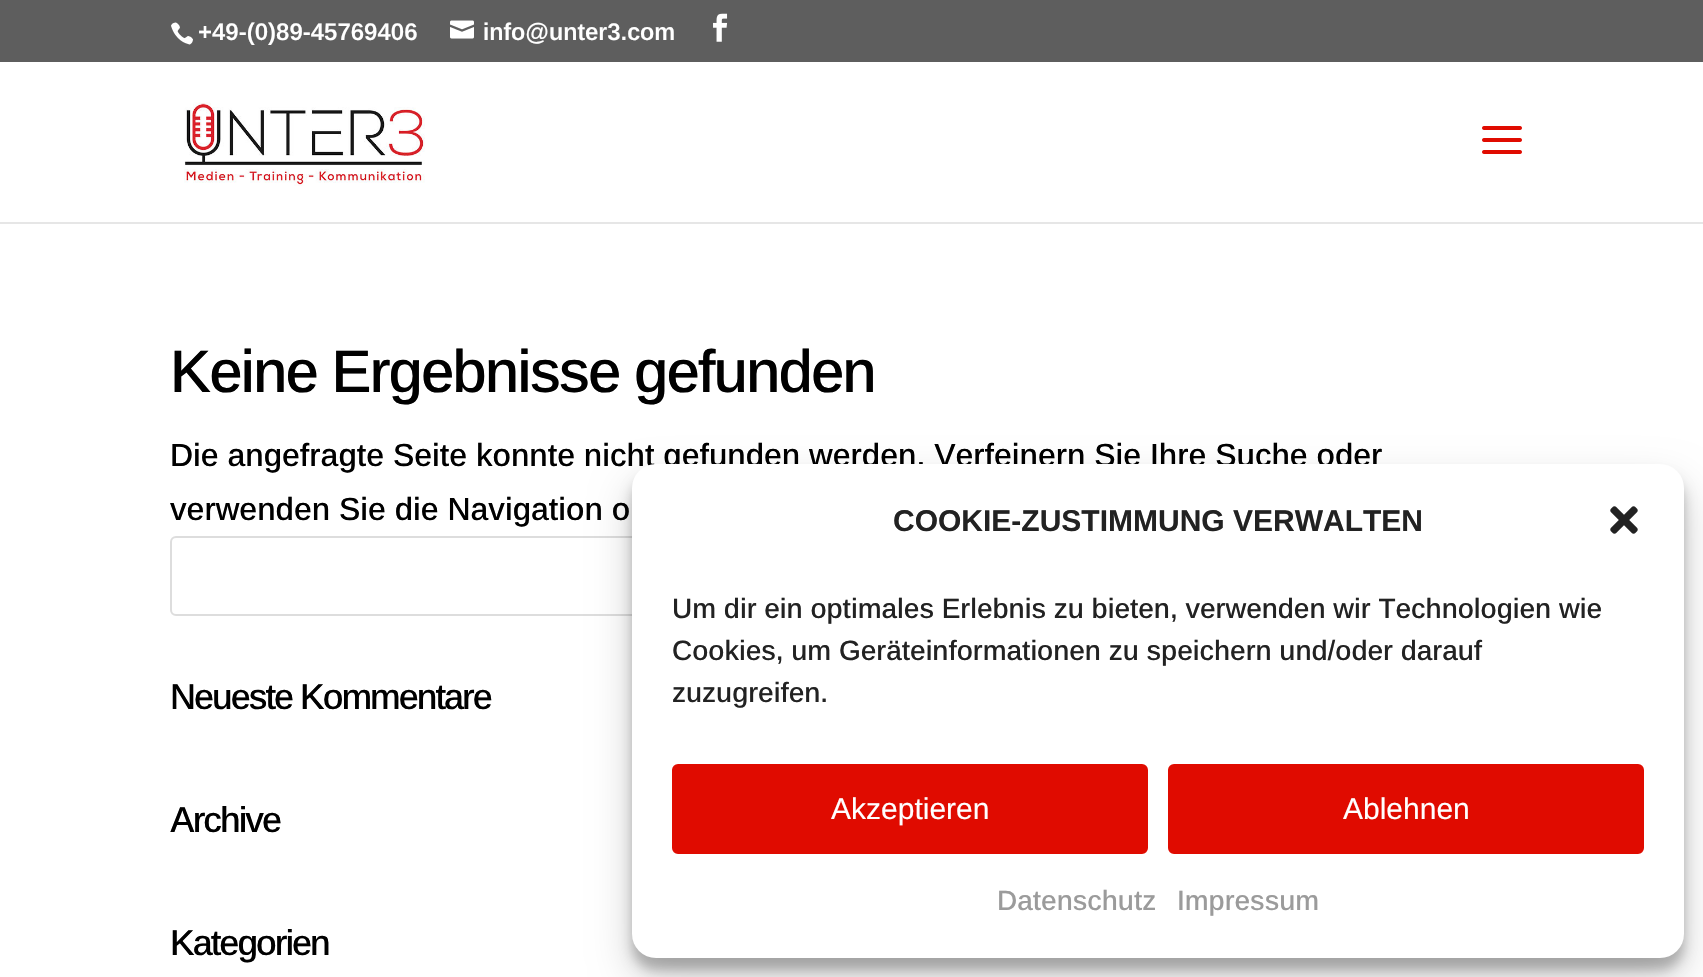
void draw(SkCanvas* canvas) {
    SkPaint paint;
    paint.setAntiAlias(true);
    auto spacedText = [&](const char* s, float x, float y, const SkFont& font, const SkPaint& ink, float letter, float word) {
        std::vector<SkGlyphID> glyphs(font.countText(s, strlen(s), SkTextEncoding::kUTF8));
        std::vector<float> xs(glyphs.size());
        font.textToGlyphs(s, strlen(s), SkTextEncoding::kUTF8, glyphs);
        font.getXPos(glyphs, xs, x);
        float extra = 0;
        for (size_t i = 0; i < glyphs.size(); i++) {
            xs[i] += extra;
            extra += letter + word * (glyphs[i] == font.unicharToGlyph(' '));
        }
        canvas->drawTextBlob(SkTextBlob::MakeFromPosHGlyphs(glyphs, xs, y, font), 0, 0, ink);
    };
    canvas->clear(0xFFFFFFFF);
    paint.setColor(0xFF5E5E5E);
    canvas->drawRect(SkRect::MakeXYWH(0, 0, 1703, 62), paint);
    canvas->drawImageRect(SkImages::DeferredFromEncodedData(SkData::MakeFromFileName("img1.png")), SkRect::MakeXYWH(171, 22, 22, 23), SkSamplingOptions());
    SkFont font1(fontMgr->matchFamilyStyle("Arimo", SkFontStyle(600, SkFontStyle::kNormal_Width, SkFontStyle::kUpright_Slant)), 24);
    font1.setSubpixel(true);
    paint.setColor(0xFFFFFFFF);
    canvas->drawString("+49-(0)89-45769406", 198, 40, font1, paint);
    canvas->drawImageRect(SkImages::DeferredFromEncodedData(SkData::MakeFromFileName("img2.png")), SkRect::MakeXYWH(450, 20, 24, 19), SkSamplingOptions());
    canvas->drawString("info@unter3.com", 483, 40, font1, paint);
    canvas->drawImageRect(SkImages::DeferredFromEncodedData(SkData::MakeFromFileName("img3.png")), SkRect::MakeXYWH(713, 13, 15, 29), SkSamplingOptions());
    paint.setColor(0xFFE6E6E6);
    canvas->drawRect(SkRect::MakeXYWH(0, 222, 1703, 2), paint);
    canvas->drawImageRect(SkImages::DeferredFromEncodedData(SkData::MakeFromFileName("img4.png")), SkRect::MakeXYWH(184, 102, 241, 84), SkSamplingOptions());
    canvas->drawImageRect(SkImages::DeferredFromEncodedData(SkData::MakeFromFileName("img5.png")), SkRect::MakeXYWH(1482, 126, 40, 28), SkSamplingOptions());
    SkFont font2(fontMgr->matchFamilyStyle("Arimo", SkFontStyle(500, SkFontStyle::kNormal_Width, SkFontStyle::kUpright_Slant)), 60);
    font2.setSubpixel(true);
    paint.setColor(0xFF000000);
    spacedText("Keine Ergebnisse gefunden", 170, 392, font2, paint, -2, 0);
    SkFont font3(fontMgr->matchFamilyStyle("Arimo", SkFontStyle(500, SkFontStyle::kNormal_Width, SkFontStyle::kUpright_Slant)), 32);
    font3.setSubpixel(true);
    canvas->drawString("Die angefragte Seite konnte nicht gefunden werden. Verfeinern Sie Ihre Suche oder", 170, 466, font3, paint);
    canvas->drawString("verwenden Sie die Navigation o", 170, 520, font3, paint);
    paint.setStyle(SkPaint::kStroke_Style);
    paint.setStrokeWidth(2);
    paint.setColor(0xFFDDDDDD);
    canvas->drawRoundRect(SkRect::MakeXYWH(171, 537, 1362, 78), 5, 5, paint);
    SkFont font4(fontMgr->matchFamilyStyle("Arimo", SkFontStyle(500, SkFontStyle::kNormal_Width, SkFontStyle::kUpright_Slant)), 36);
    font4.setSubpixel(true);
    paint.setStyle(SkPaint::kFill_Style);
    paint.setColor(0xFF000000);
    spacedText("Neueste Kommentare", 170, 709, font4, paint, -2, 0);
    spacedText("Archive", 170, 832, font4, paint, -2, 0);
    spacedText("Kategorien", 170, 955, font4, paint, -2, 0);
    paint.setColor(0x3B000000);
    paint.setMaskFilter(SkMaskFilter::MakeBlur(kNormal_SkBlurStyle, 6));
    canvas->drawRoundRect(SkRect::MakeXYWH(632, 476, 1052, 494), 24, 24, paint);
    paint.setMaskFilter(nullptr);
    paint.setColor(0x30000000);
    paint.setMaskFilter(SkMaskFilter::MakeBlur(kNormal_SkBlurStyle, 20));
    canvas->drawRoundRect(SkRect::MakeXYWH(632, 484, 1052, 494), 24, 24, paint);
    paint.setMaskFilter(nullptr);
    paint.setColor(0xFFFFFFFF);
    canvas->drawRoundRect(SkRect::MakeXYWH(632, 464, 1052, 494), 24, 24, paint);
    SkFont font5(fontMgr->matchFamilyStyle("Arimo", SkFontStyle::Bold()), 30);
    font5.setSubpixel(true);
    paint.setColor(0xFF222222);
    canvas->drawString("COOKIE-ZUSTIMMUNG VERWALTEN", 893, 531, font5, paint);
    canvas->drawImageRect(SkImages::DeferredFromEncodedData(SkData::MakeFromFileName("img6.png")), SkRect::MakeXYWH(1610, 506, 28, 28), SkSamplingOptions());
    SkFont font6(fontMgr->matchFamilyStyle("Arimo", SkFontStyle(500, SkFontStyle::kNormal_Width, SkFontStyle::kUpright_Slant)), 28);
    font6.setSubpixel(true);
    canvas->drawString("Um dir ein optimales Erlebnis zu bieten, verwenden wir Technologien wie", 672, 618, font6, paint);
    canvas->drawString("Cookies, um Geräteinformationen zu speichern und/oder darauf", 672, 660, font6, paint);
    canvas->drawString("zuzugreifen.", 672, 702, font6, paint);
    paint.setColor(0xFFE00B00);
    canvas->drawRoundRect(SkRect::MakeXYWH(673, 765, 474, 88), 5, 5, paint);
    paint.setStyle(SkPaint::kStroke_Style);
    canvas->drawRoundRect(SkRect::MakeXYWH(673, 765, 474, 88), 5, 5, paint);
    SkFont font7(fontMgr->matchFamilyStyle("Liberation Sans", SkFontStyle::Normal()), 30);
    font7.setSubpixel(true);
    paint.setStyle(SkPaint::kFill_Style);
    paint.setColor(0xFFFFFFFF);
    canvas->drawString("Akzeptieren", 831, 819, font7, paint);
    paint.setColor(0xFFE00B00);
    canvas->drawRoundRect(SkRect::MakeXYWH(1169, 765, 474, 88), 5, 5, paint);
    paint.setStyle(SkPaint::kStroke_Style);
    canvas->drawRoundRect(SkRect::MakeXYWH(1169, 765, 474, 88), 5, 5, paint);
    paint.setStyle(SkPaint::kFill_Style);
    paint.setColor(0xFFFFFFFF);
    canvas->drawString("Ablehnen", 1343, 819, font7, paint);
    paint.setColor(0xFF9B9B9B);
    canvas->drawString("Datenschutz", 997, 910, font6, paint);
    canvas->drawString("Impressum", 1177, 910, font6, paint);
}
